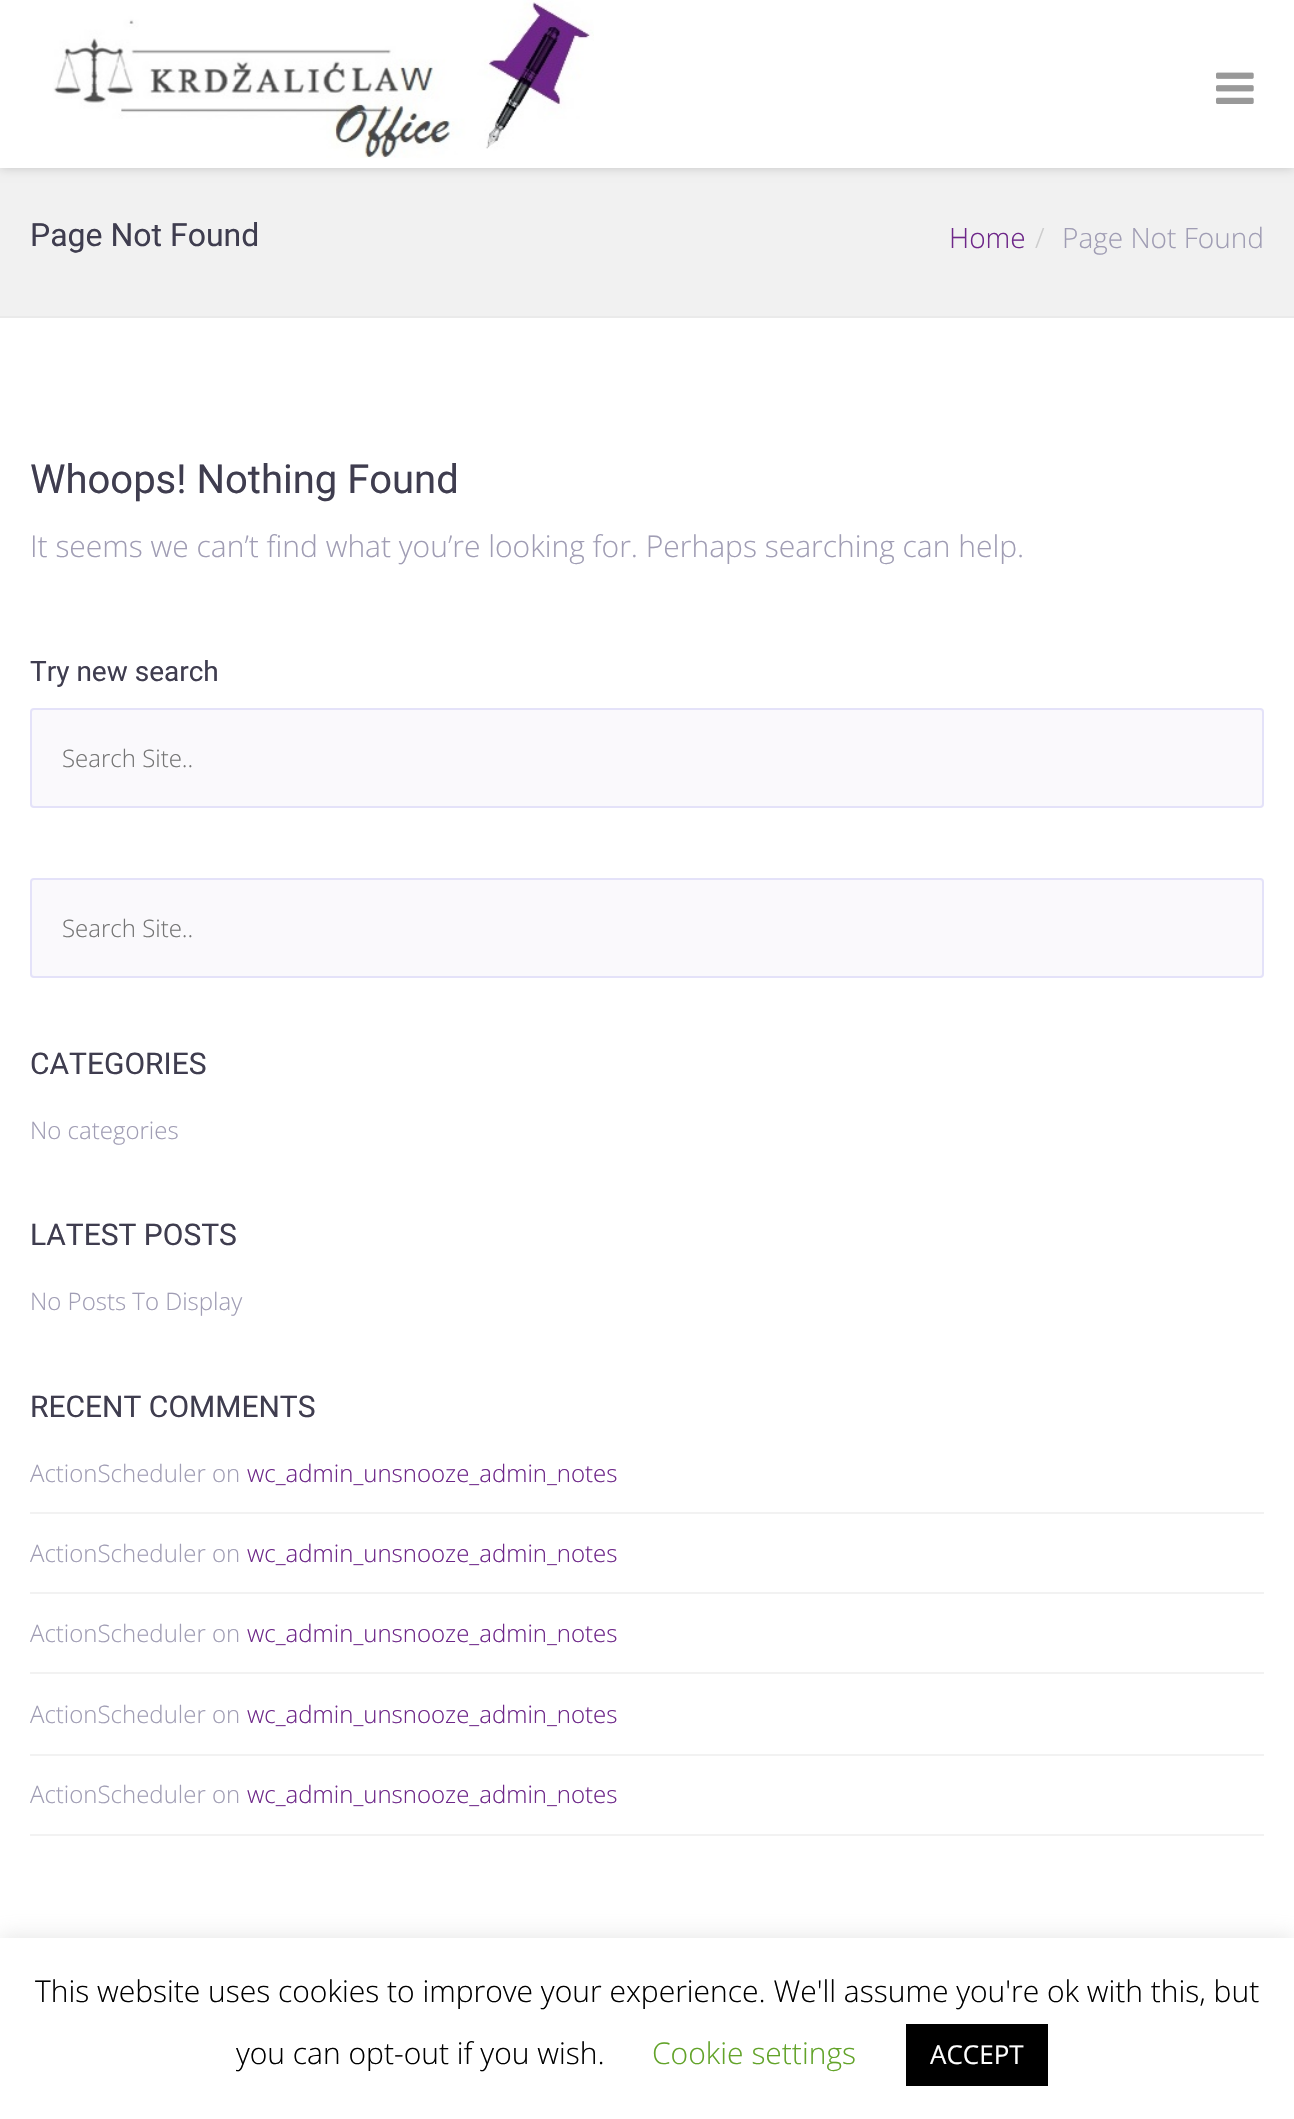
void draw(SkCanvas* canvas) {
    SkPaint paint;
    paint.setAntiAlias(true);
    canvas->clear(0xFFFFFFFF);
    paint.setColor(0xFFF1F1F1);
    canvas->drawRect(SkRect::MakeXYWH(0, 168, 1294, 148), paint);
    paint.setColor(0x30000000);
    paint.setMaskFilter(SkMaskFilter::MakeBlur(kNormal_SkBlurStyle, 5));
    canvas->drawRect(SkRect::MakeXYWH(0, 0, 1294, 168), paint);
    paint.setMaskFilter(nullptr);
    paint.setColor(0xFFFFFFFF);
    canvas->drawRect(SkRect::MakeXYWH(0, 0, 1294, 168), paint);
    canvas->drawImageRect(SkImages::DeferredFromEncodedData(SkData::MakeFromFileName("img1.png")), SkRect::MakeXYWH(53, 0, 541, 158), SkSamplingOptions());
    canvas->drawImageRect(SkImages::DeferredFromEncodedData(SkData::MakeFromFileName("img2.png")), SkRect::MakeXYWH(1216, 72, 38, 32), SkSamplingOptions());
    paint.setColor(0xFFEAEAEA);
    canvas->drawRect(SkRect::MakeXYWH(0, 316, 1294, 2), paint);
    SkFont font1(fontMgr->matchFamilyStyle("Roboto", SkFontStyle::Normal()), 32);
    font1.setSubpixel(true);
    paint.setColor(0xFF3F3D4F);
    canvas->drawString("Page Not Found", 30, 246, font1, paint);
    SkFont font2(fontMgr->matchFamilyStyle("Open Sans", SkFontStyle(300, SkFontStyle::kNormal_Width, SkFontStyle::kUpright_Slant)), 28);
    font2.setSubpixel(true);
    paint.setColor(0xFF6E2789);
    canvas->drawString("Home", 949, 248, font2, paint);
    paint.setColor(0xFFCCCCCC);
    canvas->drawString("/", 1035, 248, font2, paint);
    paint.setColor(0xFFA09DB4);
    canvas->drawString("Page Not Found", 1062, 248, font2, paint);
    SkFont font3(fontMgr->matchFamilyStyle("Roboto", SkFontStyle::Normal()), 40);
    font3.setSubpixel(true);
    paint.setColor(0xFF3F3D4F);
    canvas->drawString("Whoops! Nothing Found", 30, 493, font3, paint);
    SkFont font4(fontMgr->matchFamilyStyle("Open Sans", SkFontStyle(300, SkFontStyle::kNormal_Width, SkFontStyle::kUpright_Slant)), 30);
    font4.setSubpixel(true);
    paint.setColor(0xFFA09DB4);
    canvas->drawString("It seems we can’t find what you’re looking for. Perhaps searching can help.", 30, 557, font4, paint);
    SkFont font5(fontMgr->matchFamilyStyle("Roboto", SkFontStyle::Normal()), 28);
    font5.setSubpixel(true);
    paint.setColor(0xFF3F3D4F);
    canvas->drawString("Try new search", 30, 681, font5, paint);
    paint.setColor(0xFFFAF9FC);
    canvas->drawRoundRect(SkRect::MakeXYWH(31, 709, 1232, 98), 3, 3, paint);
    paint.setStyle(SkPaint::kStroke_Style);
    paint.setStrokeWidth(2);
    paint.setColor(0xFFE4E2F9);
    canvas->drawRoundRect(SkRect::MakeXYWH(31, 709, 1232, 98), 3, 3, paint);
    SkFont font6(fontMgr->matchFamilyStyle("Open Sans", SkFontStyle(300, SkFontStyle::kNormal_Width, SkFontStyle::kUpright_Slant)), 24);
    font6.setSubpixel(true);
    paint.setStyle(SkPaint::kFill_Style);
    paint.setColor(0xFF757575);
    canvas->drawString("Search Site..", 62, 767, font6, paint);
    paint.setColor(0xFFFAF9FC);
    canvas->drawRoundRect(SkRect::MakeXYWH(31, 879, 1232, 98), 3, 3, paint);
    paint.setStyle(SkPaint::kStroke_Style);
    paint.setColor(0xFFE4E2F9);
    canvas->drawRoundRect(SkRect::MakeXYWH(31, 879, 1232, 98), 3, 3, paint);
    paint.setStyle(SkPaint::kFill_Style);
    paint.setColor(0xFF757575);
    canvas->drawString("Search Site..", 62, 937, font6, paint);
    SkFont font7(fontMgr->matchFamilyStyle("Roboto", SkFontStyle::Normal()), 30);
    font7.setSubpixel(true);
    paint.setColor(0xFF3F3D4F);
    canvas->drawString("CATEGORIES", 30, 1074, font7, paint);
    paint.setColor(0xFFA09DB4);
    canvas->drawString("No categories", 30, 1139, font6, paint);
    paint.setColor(0xFF3F3D4F);
    canvas->drawString("LATEST POSTS", 30, 1245, font7, paint);
    paint.setColor(0xFFA09DB4);
    canvas->drawString("No Posts To Display", 30, 1310, font6, paint);
    paint.setColor(0xFF3F3D4F);
    canvas->drawString("RECENT COMMENTS", 30, 1417, font7, paint);
    paint.setColor(0xFFF2F2F2);
    canvas->drawRect(SkRect::MakeXYWH(30, 1512, 1234, 2), paint);
    paint.setColor(0xFFA09DB4);
    canvas->drawString("ActionScheduler on", 30, 1482, font6, paint);
    paint.setColor(0xFF6E2789);
    canvas->drawString("wc_admin_unsnooze_admin_notes", 247, 1482, font6, paint);
    paint.setColor(0xFFF2F2F2);
    canvas->drawRect(SkRect::MakeXYWH(30, 1592, 1234, 2), paint);
    paint.setColor(0xFFA09DB4);
    canvas->drawString("ActionScheduler on", 30, 1562, font6, paint);
    paint.setColor(0xFF6E2789);
    canvas->drawString("wc_admin_unsnooze_admin_notes", 247, 1562, font6, paint);
    paint.setColor(0xFFF2F2F2);
    canvas->drawRect(SkRect::MakeXYWH(30, 1672, 1234, 2), paint);
    paint.setColor(0xFFA09DB4);
    canvas->drawString("ActionScheduler on", 30, 1642, font6, paint);
    paint.setColor(0xFF6E2789);
    canvas->drawString("wc_admin_unsnooze_admin_notes", 247, 1642, font6, paint);
    paint.setColor(0xFFF2F2F2);
    canvas->drawRect(SkRect::MakeXYWH(30, 1754, 1234, 2), paint);
    paint.setColor(0xFFA09DB4);
    canvas->drawString("ActionScheduler on", 30, 1723, font6, paint);
    paint.setColor(0xFF6E2789);
    canvas->drawString("wc_admin_unsnooze_admin_notes", 247, 1723, font6, paint);
    paint.setColor(0xFFF2F2F2);
    canvas->drawRect(SkRect::MakeXYWH(30, 1834, 1234, 2), paint);
    paint.setColor(0xFFA09DB4);
    canvas->drawString("ActionScheduler on", 30, 1803, font6, paint);
    paint.setColor(0xFF6E2789);
    canvas->drawString("wc_admin_unsnooze_admin_notes", 247, 1803, font6, paint);
    paint.setColor(0x4DACABAB);
    paint.setMaskFilter(SkMaskFilter::MakeBlur(kNormal_SkBlurStyle, 10));
    canvas->drawRect(SkRect::MakeXYWH(0, 1936, 1294, 182), paint);
    paint.setMaskFilter(nullptr);
    paint.setColor(0xFFFFFFFF);
    canvas->drawRect(SkRect::MakeXYWH(0, 1938, 1294, 181), paint);
    paint.setColor(0xFF000000);
    canvas->drawString("This website uses cookies to improve your experience. We'll assume you're ok with this, but", 35, 2002, font4, paint);
    canvas->drawString("you can opt-out if you wish.", 236, 2064, font4, paint);
    paint.setColor(0xFF62A329);
    canvas->drawString("Cookie settings", 652, 2064, font4, paint);
    paint.setColor(0xFF000000);
    canvas->drawRect(SkRect::MakeXYWH(906, 2024, 142, 62), paint);
    SkFont font8(fontMgr->matchFamilyStyle("Open Sans", SkFontStyle::Normal()), 26);
    font8.setSubpixel(true);
    paint.setColor(0xFFFFFFFF);
    canvas->drawString("ACCEPT", 930, 2064, font8, paint);
}
